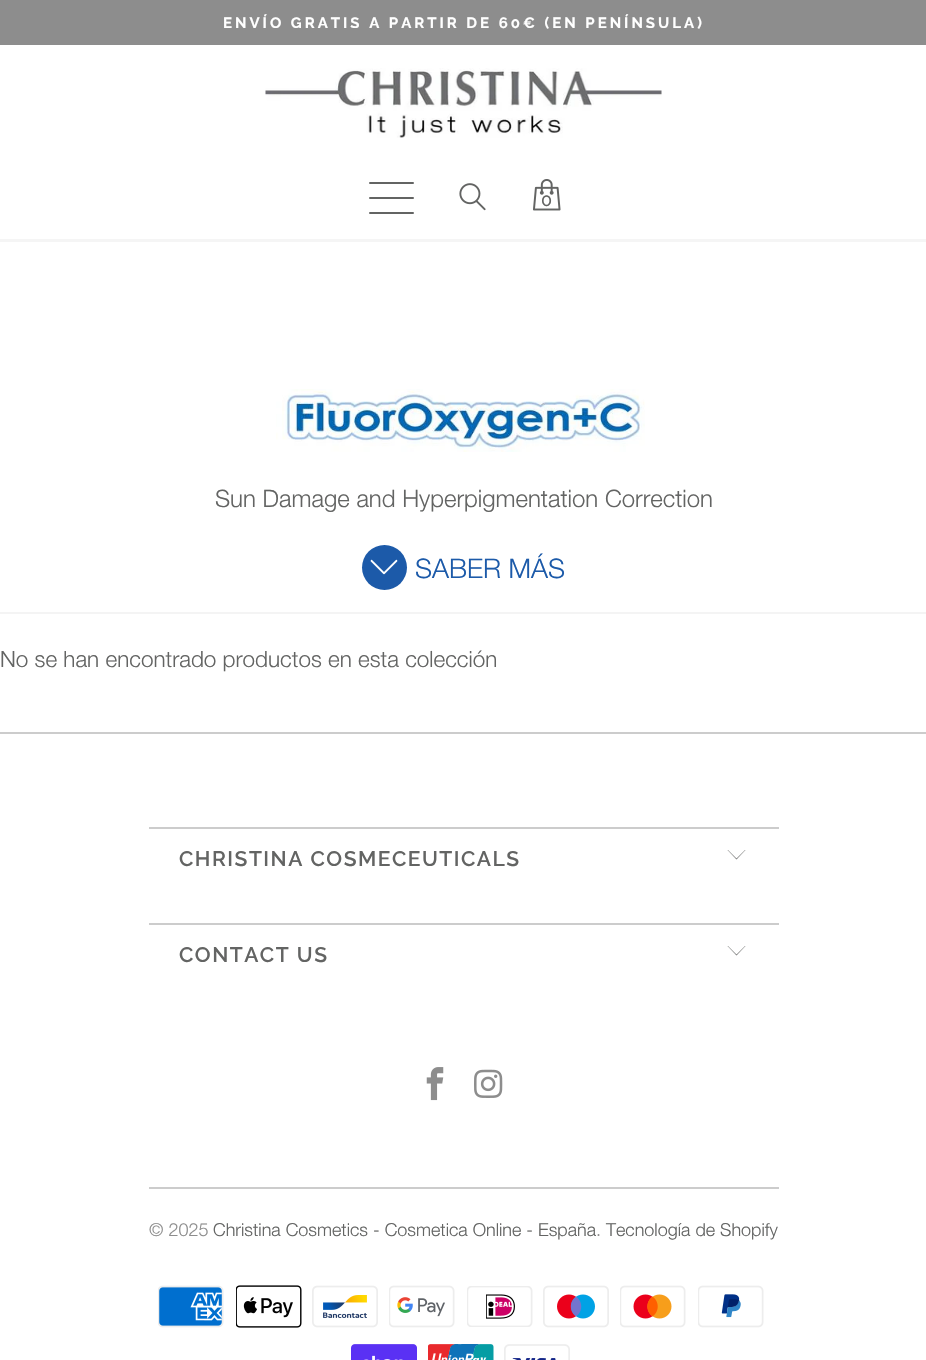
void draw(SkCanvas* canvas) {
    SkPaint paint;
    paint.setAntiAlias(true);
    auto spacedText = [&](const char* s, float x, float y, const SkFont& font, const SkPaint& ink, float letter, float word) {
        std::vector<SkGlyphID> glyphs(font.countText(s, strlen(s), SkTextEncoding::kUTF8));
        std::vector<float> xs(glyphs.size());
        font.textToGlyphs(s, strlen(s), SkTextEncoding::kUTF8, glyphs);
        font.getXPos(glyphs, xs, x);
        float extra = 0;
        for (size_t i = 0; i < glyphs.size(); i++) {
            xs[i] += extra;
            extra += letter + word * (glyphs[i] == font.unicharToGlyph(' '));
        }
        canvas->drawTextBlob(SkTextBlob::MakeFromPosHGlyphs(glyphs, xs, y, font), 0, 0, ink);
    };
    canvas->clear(0xFFFFFFFF);
    paint.setColor(0xFF8D8D8D);
    canvas->drawRect(SkRect::MakeXYWH(0, 0, 926, 45), paint);
    SkFont font1(fontMgr->matchFamilyStyle("Raleway", SkFontStyle::Bold()), 15);
    font1.setSubpixel(true);
    paint.setColor(0xFFFFFFFF);
    spacedText("ENVÍO GRATIS A PARTIR DE 60€ (EN PENÍNSULA)", 223, 28, font1, paint, 3, 0);
    paint.setColor(0xFFF5F5F5);
    canvas->drawRect(SkRect::MakeXYWH(0, 239, 926, 3), paint);
    canvas->drawImageRect(SkImages::DeferredFromEncodedData(SkData::MakeFromFileName("img1.png")), SkRect::MakeXYWH(265, 68, 397, 70), SkSamplingOptions());
    paint.setColor(0xFF636463);
    canvas->drawRoundRect(SkRect::MakeXYWH(369, 182, 45, 2), 1, 1, paint);
    canvas->drawRoundRect(SkRect::MakeXYWH(369, 197, 45, 2), 1, 1, paint);
    canvas->drawRoundRect(SkRect::MakeXYWH(369, 212, 45, 2), 1, 1, paint);
    canvas->drawImageRect(SkImages::DeferredFromEncodedData(SkData::MakeFromFileName("img2.png")), SkRect::MakeXYWH(459, 183, 27, 28), SkSamplingOptions());
    canvas->drawImageRect(SkImages::DeferredFromEncodedData(SkData::MakeFromFileName("img3.png")), SkRect::MakeXYWH(533, 179, 28, 32), SkSamplingOptions());
    SkFont font2(fontMgr->matchFamilyStyle("Raleway", SkFontStyle(500, SkFontStyle::kNormal_Width, SkFontStyle::kUpright_Slant)), 18);
    font2.setSubpixel(true);
    spacedText("0", 541, 206, font2, paint, 1.5f, 0);
    paint.setColor(0xFFF4F4F4);
    canvas->drawRect(SkRect::MakeXYWH(0, 612, 926, 2), paint);
    canvas->drawImageRect(SkImages::DeferredFromEncodedData(SkData::MakeFromFileName("img4.png")), SkRect::MakeXYWH(276, 389, 369, 63), SkSamplingOptions());
    SkFont font3(fontMgr->matchFamilyStyle("Helvetica Neue", SkFontStyle(300, SkFontStyle::kNormal_Width, SkFontStyle::kUpright_Slant)), 24);
    font3.setSubpixel(true);
    paint.setColor(0xFF636463);
    canvas->drawString("Sun Damage and Hyperpigmentation Correction", 215, 507, font3, paint);
    paint.setColor(0xFF1C5AA9);
    canvas->drawCircle(384.5f, 567.5f, 22.5f, paint);
    SkFont font4(fontMgr->matchFamilyStyle("Helvetica Neue", SkFontStyle(300, SkFontStyle::kNormal_Width, SkFontStyle::kUpright_Slant)), 27);
    font4.setSubpixel(true);
    canvas->drawString("SABER MÁS", 415, 578, font4, paint);
    canvas->drawImageRect(SkImages::DeferredFromEncodedData(SkData::MakeFromFileName("img5.png")), SkRect::MakeXYWH(370, 559, 28, 16), SkSamplingOptions());
    SkFont font5(fontMgr->matchFamilyStyle("Helvetica Neue", SkFontStyle(300, SkFontStyle::kNormal_Width, SkFontStyle::kUpright_Slant)), 22.5f);
    font5.setSubpixel(true);
    paint.setColor(0xFF636463);
    canvas->drawString("No se han encontrado productos en esta colección", 0, 667, font5, paint);
    paint.setColor(0xFFCCCCCC);
    canvas->drawRect(SkRect::MakeXYWH(0, 732, 926, 2), paint);
    canvas->drawRect(SkRect::MakeXYWH(149, 827, 630, 2), paint);
    SkFont font6(fontMgr->matchFamilyStyle("Raleway", SkFontStyle(600, SkFontStyle::kNormal_Width, SkFontStyle::kUpright_Slant)), 21);
    font6.setSubpixel(true);
    paint.setColor(0xFF636463);
    spacedText("CHRISTINA COSMECEUTICALS", 179, 866, font6, paint, 1.5f, 0);
    canvas->drawPath(SkPathBuilder().moveTo(736.5f, 859.5f).lineTo(727.5f, 850).lineTo(728, 850).lineTo(736.5f, 858.5f).lineTo(745, 850).lineTo(745.5f, 850).close().detach(), paint);
    paint.setColor(0xFFCCCCCC);
    canvas->drawRect(SkRect::MakeXYWH(149, 923, 630, 2), paint);
    paint.setColor(0xFF636463);
    spacedText("CONTACT US", 179, 962, font6, paint, 1.5f, 0);
    canvas->drawPath(SkPathBuilder().moveTo(736.5f, 955.5f).lineTo(727.5f, 946).lineTo(728, 946).lineTo(736.5f, 954.5f).lineTo(745, 946).lineTo(745.5f, 946).close().detach(), paint);
    canvas->drawImageRect(SkImages::DeferredFromEncodedData(SkData::MakeFromFileName("img6.png")), SkRect::MakeXYWH(426, 1067, 18, 34), SkSamplingOptions());
    canvas->drawImageRect(SkImages::DeferredFromEncodedData(SkData::MakeFromFileName("img7.png")), SkRect::MakeXYWH(474, 1069, 29, 29), SkSamplingOptions());
    paint.setColor(0xFFCCCCCC);
    canvas->drawRect(SkRect::MakeXYWH(149, 1187, 630, 2), paint);
    SkFont font7(fontMgr->matchFamilyStyle("Helvetica Neue", SkFontStyle(300, SkFontStyle::kNormal_Width, SkFontStyle::kUpright_Slant)), 18);
    font7.setSubpixel(true);
    paint.setColor(0xFF8D8D8D);
    canvas->drawString("© 2025", 149, 1236, font7, paint);
    paint.setColor(0xFF636463);
    canvas->drawString("Christina Cosmetics - Cosmetica Online - España", 213, 1236, font7, paint);
    paint.setColor(0xFF8D8D8D);
    canvas->drawString(".", 596, 1236, font7, paint);
    paint.setColor(0xFF636463);
    canvas->drawString("Tecnología de Shopify", 606, 1236, font7, paint);
    canvas->drawImageRect(SkImages::DeferredFromEncodedData(SkData::MakeFromFileName("img8.png")), SkRect::MakeXYWH(158, 1285, 66, 43), SkSamplingOptions());
    canvas->drawImageRect(SkImages::DeferredFromEncodedData(SkData::MakeFromFileName("img9.png")), SkRect::MakeXYWH(236, 1285, 66, 43), SkSamplingOptions());
    canvas->drawImageRect(SkImages::DeferredFromEncodedData(SkData::MakeFromFileName("img10.png")), SkRect::MakeXYWH(312, 1285, 66, 43), SkSamplingOptions());
    canvas->drawImageRect(SkImages::DeferredFromEncodedData(SkData::MakeFromFileName("img11.png")), SkRect::MakeXYWH(389, 1285, 66, 43), SkSamplingOptions());
    canvas->drawImageRect(SkImages::DeferredFromEncodedData(SkData::MakeFromFileName("img12.png")), SkRect::MakeXYWH(467, 1286, 66, 41), SkSamplingOptions());
    canvas->drawImageRect(SkImages::DeferredFromEncodedData(SkData::MakeFromFileName("img13.png")), SkRect::MakeXYWH(543, 1285, 66, 43), SkSamplingOptions());
    canvas->drawImageRect(SkImages::DeferredFromEncodedData(SkData::MakeFromFileName("img14.png")), SkRect::MakeXYWH(620, 1285, 66, 43), SkSamplingOptions());
    canvas->drawImageRect(SkImages::DeferredFromEncodedData(SkData::MakeFromFileName("img15.png")), SkRect::MakeXYWH(698, 1285, 66, 43), SkSamplingOptions());
    canvas->drawImageRect(SkImages::DeferredFromEncodedData(SkData::MakeFromFileName("img16.png")), SkRect::MakeXYWH(351, 1344, 66, 16), SkSamplingOptions());
    canvas->drawImageRect(SkImages::DeferredFromEncodedData(SkData::MakeFromFileName("img17.png")), SkRect::MakeXYWH(428, 1344, 66, 16), SkSamplingOptions());
    canvas->drawImageRect(SkImages::DeferredFromEncodedData(SkData::MakeFromFileName("img18.png")), SkRect::MakeXYWH(504, 1344, 66, 16), SkSamplingOptions());
}
